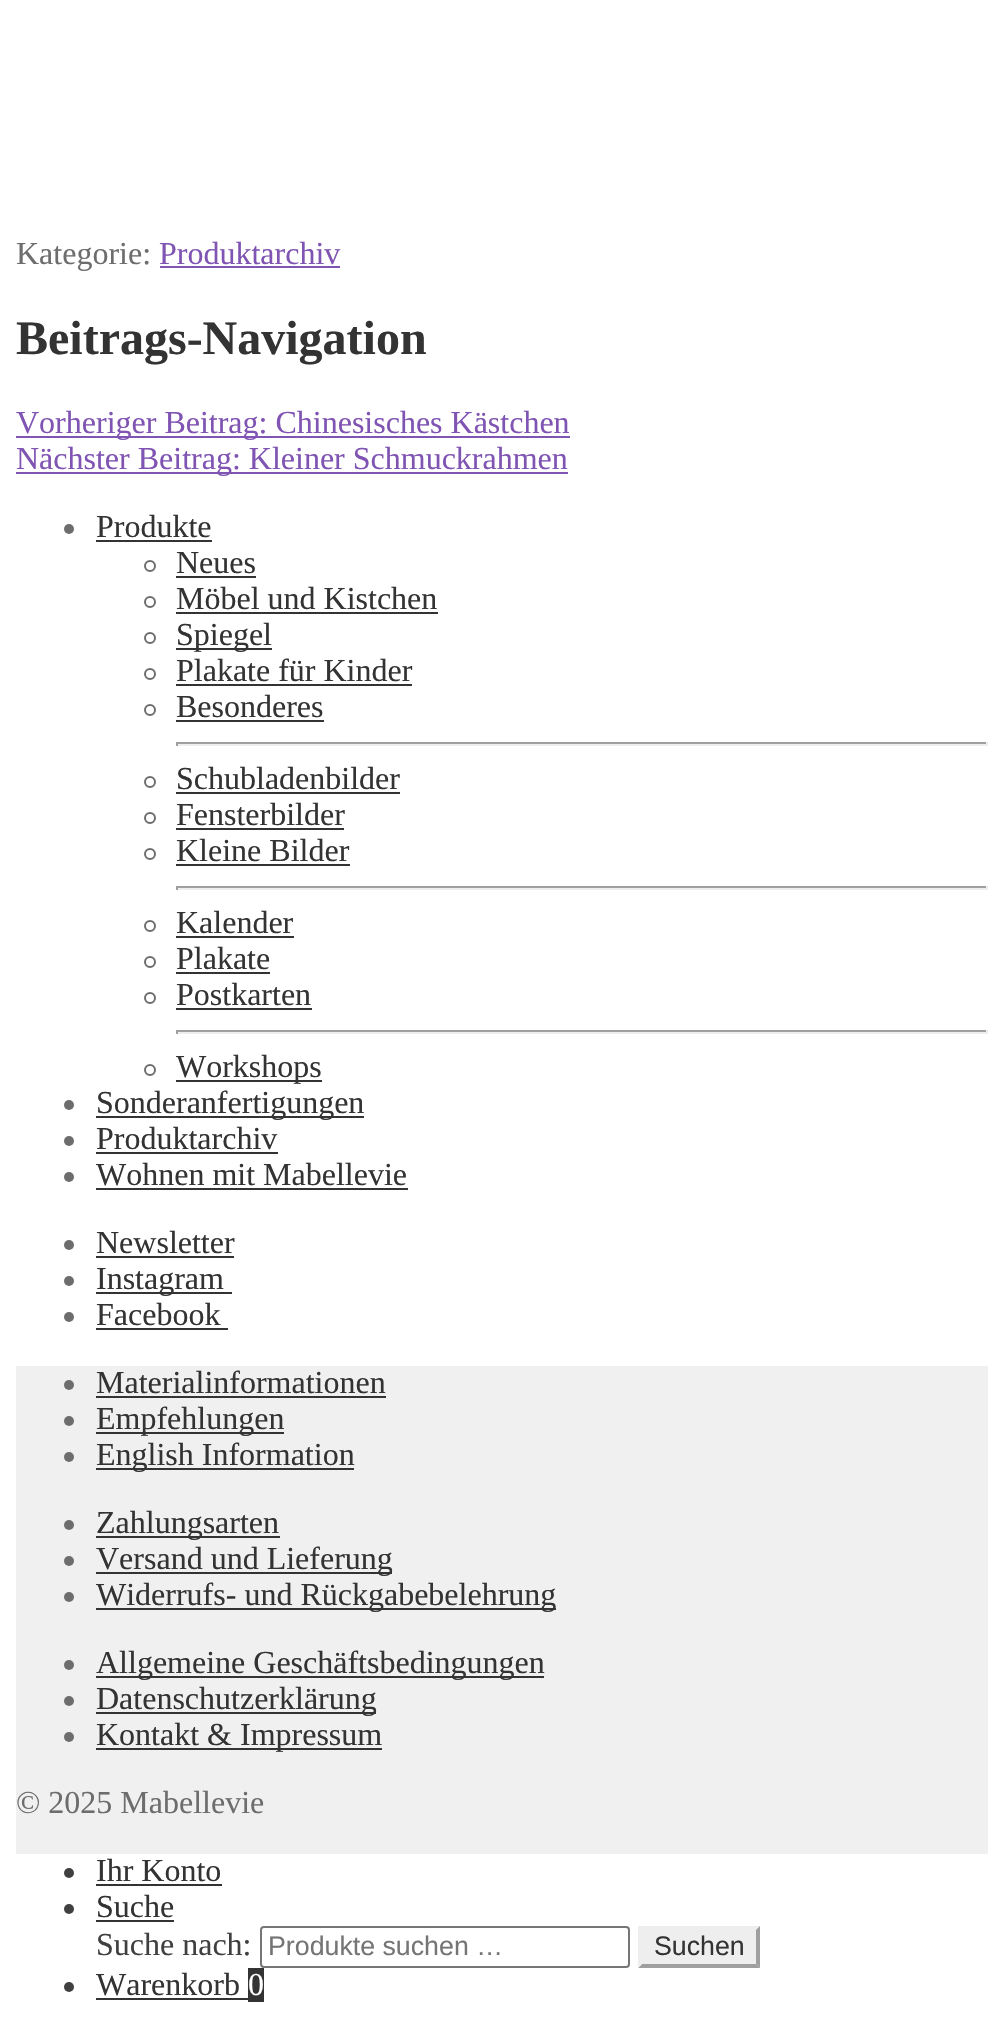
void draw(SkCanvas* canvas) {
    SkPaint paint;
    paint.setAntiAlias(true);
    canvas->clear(0xFFFFFFFF);
    SkFont font1(fontMgr->matchFamilyStyle("Liberation Serif", SkFontStyle::Normal()), 32);
    font1.setSubpixel(true);
    paint.setColor(0xFF6D6D6D);
    canvas->drawString("Kategorie:", 16, 264, font1, paint);
    paint.setColor(0xFF7F54B3);
    canvas->drawString("Produktarchiv", 159, 264, font1, paint);
    canvas->drawRect(SkRect::MakeXYWH(160, 266, 180, 2), paint);
    SkFont font2(fontMgr->matchFamilyStyle("Liberation Serif", SkFontStyle::Bold()), 48);
    font2.setSubpixel(true);
    paint.setColor(0xFF333333);
    canvas->drawString("Beitrags-Navigation", 16, 354, font2, paint);
    paint.setColor(0xFF7F54B3);
    canvas->drawRect(SkRect::MakeXYWH(16, 436, 554, 2), paint);
    canvas->drawString("Vorheriger Beitrag: Chinesisches Kästchen", 16, 433, font1, paint);
    canvas->drawRect(SkRect::MakeXYWH(16, 472, 552, 2), paint);
    canvas->drawString("Nächster Beitrag: Kleiner Schmuckrahmen", 16, 469, font1, paint);
    paint.setColor(0xFF6D6D6D);
    canvas->drawCircle(69, 529, 5, paint);
    paint.setColor(0xFF333333);
    canvas->drawString("Produkte", 96, 537, font1, paint);
    canvas->drawRect(SkRect::MakeXYWH(96, 540, 116, 2), paint);
    paint.setStyle(SkPaint::kStroke_Style);
    paint.setStrokeWidth(2);
    paint.setColor(0xFF6D6D6D);
    canvas->drawCircle(150, 566, 5, paint);
    paint.setStyle(SkPaint::kFill_Style);
    paint.setColor(0xFF333333);
    canvas->drawString("Neues", 176, 573, font1, paint);
    canvas->drawRect(SkRect::MakeXYWH(176, 576, 80, 2), paint);
    paint.setStyle(SkPaint::kStroke_Style);
    paint.setColor(0xFF6D6D6D);
    canvas->drawCircle(150, 602, 5, paint);
    paint.setStyle(SkPaint::kFill_Style);
    paint.setColor(0xFF333333);
    canvas->drawString("Möbel und Kistchen", 176, 609, font1, paint);
    canvas->drawRect(SkRect::MakeXYWH(176, 612, 262, 2), paint);
    paint.setStyle(SkPaint::kStroke_Style);
    paint.setColor(0xFF6D6D6D);
    canvas->drawCircle(150, 638, 5, paint);
    paint.setStyle(SkPaint::kFill_Style);
    paint.setColor(0xFF333333);
    canvas->drawRect(SkRect::MakeXYWH(176, 648, 96, 2), paint);
    canvas->drawString("Spiegel", 176, 645, font1, paint);
    paint.setStyle(SkPaint::kStroke_Style);
    paint.setColor(0xFF6D6D6D);
    canvas->drawCircle(150, 674, 5, paint);
    paint.setStyle(SkPaint::kFill_Style);
    paint.setColor(0xFF333333);
    canvas->drawString("Plakate für Kinder", 176, 681, font1, paint);
    canvas->drawRect(SkRect::MakeXYWH(176, 684, 236, 2), paint);
    paint.setStyle(SkPaint::kStroke_Style);
    paint.setColor(0xFF6D6D6D);
    canvas->drawCircle(150, 710, 5, paint);
    paint.setStyle(SkPaint::kFill_Style);
    paint.setColor(0xFF333333);
    canvas->drawString("Besonderes", 176, 717, font1, paint);
    canvas->drawRect(SkRect::MakeXYWH(176, 720, 148, 2), paint);
    paint.setColor(0xFF9F9F9F);
    canvas->drawRect(SkRect::MakeXYWH(176, 742, 812, 2), paint);
    paint.setColor(0xFFEEEEEE);
    canvas->drawRect(SkRect::MakeXYWH(986, 742, 2, 4), paint);
    canvas->drawRect(SkRect::MakeXYWH(176, 744, 812, 2), paint);
    paint.setColor(0xFF9F9F9F);
    canvas->drawRect(SkRect::MakeXYWH(176, 742, 2, 4), paint);
    paint.setStyle(SkPaint::kStroke_Style);
    paint.setColor(0xFF6D6D6D);
    canvas->drawCircle(150, 782, 5, paint);
    paint.setStyle(SkPaint::kFill_Style);
    paint.setColor(0xFF333333);
    canvas->drawString("Schubladenbilder", 176, 789, font1, paint);
    canvas->drawRect(SkRect::MakeXYWH(176, 792, 224, 2), paint);
    paint.setStyle(SkPaint::kStroke_Style);
    paint.setColor(0xFF6D6D6D);
    canvas->drawCircle(150, 818, 5, paint);
    paint.setStyle(SkPaint::kFill_Style);
    paint.setColor(0xFF333333);
    canvas->drawString("Fensterbilder", 176, 825, font1, paint);
    canvas->drawRect(SkRect::MakeXYWH(176, 828, 168, 2), paint);
    paint.setStyle(SkPaint::kStroke_Style);
    paint.setColor(0xFF6D6D6D);
    canvas->drawCircle(150, 854, 5, paint);
    paint.setStyle(SkPaint::kFill_Style);
    paint.setColor(0xFF333333);
    canvas->drawString("Kleine Bilder", 176, 861, font1, paint);
    canvas->drawRect(SkRect::MakeXYWH(176, 864, 174, 2), paint);
    paint.setColor(0xFF9F9F9F);
    canvas->drawRect(SkRect::MakeXYWH(176, 886, 812, 2), paint);
    paint.setColor(0xFFEEEEEE);
    canvas->drawRect(SkRect::MakeXYWH(986, 886, 2, 4), paint);
    canvas->drawRect(SkRect::MakeXYWH(176, 888, 812, 2), paint);
    paint.setColor(0xFF9F9F9F);
    canvas->drawRect(SkRect::MakeXYWH(176, 886, 2, 4), paint);
    paint.setStyle(SkPaint::kStroke_Style);
    paint.setColor(0xFF6D6D6D);
    canvas->drawCircle(150, 926, 5, paint);
    paint.setStyle(SkPaint::kFill_Style);
    paint.setColor(0xFF333333);
    canvas->drawString("Kalender", 176, 933, font1, paint);
    canvas->drawRect(SkRect::MakeXYWH(176, 936, 118, 2), paint);
    paint.setStyle(SkPaint::kStroke_Style);
    paint.setColor(0xFF6D6D6D);
    canvas->drawCircle(150, 962, 5, paint);
    paint.setStyle(SkPaint::kFill_Style);
    paint.setColor(0xFF333333);
    canvas->drawString("Plakate", 176, 969, font1, paint);
    canvas->drawRect(SkRect::MakeXYWH(176, 972, 94, 2), paint);
    paint.setStyle(SkPaint::kStroke_Style);
    paint.setColor(0xFF6D6D6D);
    canvas->drawCircle(150, 998, 5, paint);
    paint.setStyle(SkPaint::kFill_Style);
    paint.setColor(0xFF333333);
    canvas->drawString("Postkarten", 176, 1005, font1, paint);
    canvas->drawRect(SkRect::MakeXYWH(176, 1008, 136, 2), paint);
    paint.setColor(0xFF9F9F9F);
    canvas->drawRect(SkRect::MakeXYWH(176, 1030, 812, 2), paint);
    paint.setColor(0xFFEEEEEE);
    canvas->drawRect(SkRect::MakeXYWH(986, 1030, 2, 4), paint);
    canvas->drawRect(SkRect::MakeXYWH(176, 1032, 812, 2), paint);
    paint.setColor(0xFF9F9F9F);
    canvas->drawRect(SkRect::MakeXYWH(176, 1030, 2, 4), paint);
    paint.setStyle(SkPaint::kStroke_Style);
    paint.setColor(0xFF6D6D6D);
    canvas->drawCircle(150, 1070, 5, paint);
    paint.setStyle(SkPaint::kFill_Style);
    paint.setColor(0xFF333333);
    canvas->drawRect(SkRect::MakeXYWH(176, 1080, 146, 2), paint);
    canvas->drawString("Workshops", 176, 1077, font1, paint);
    paint.setColor(0xFF6D6D6D);
    canvas->drawCircle(69, 1105, 5, paint);
    paint.setColor(0xFF333333);
    canvas->drawRect(SkRect::MakeXYWH(96, 1116, 268, 2), paint);
    canvas->drawString("Sonderanfertigungen", 96, 1113, font1, paint);
    paint.setColor(0xFF6D6D6D);
    canvas->drawCircle(69, 1141, 5, paint);
    paint.setColor(0xFF333333);
    canvas->drawString("Produktarchiv", 96, 1149, font1, paint);
    canvas->drawRect(SkRect::MakeXYWH(96, 1152, 182, 2), paint);
    paint.setColor(0xFF6D6D6D);
    canvas->drawCircle(69, 1177, 5, paint);
    paint.setColor(0xFF333333);
    canvas->drawString("Wohnen mit Mabellevie", 96, 1185, font1, paint);
    canvas->drawRect(SkRect::MakeXYWH(96, 1188, 312, 2), paint);
    paint.setColor(0xFF6D6D6D);
    canvas->drawCircle(69, 1245, 5, paint);
    paint.setColor(0xFF333333);
    canvas->drawString("Newsletter", 96, 1253, font1, paint);
    canvas->drawRect(SkRect::MakeXYWH(96, 1256, 138, 2), paint);
    paint.setColor(0xFF6D6D6D);
    canvas->drawCircle(69, 1281, 5, paint);
    paint.setColor(0xFF333333);
    canvas->drawRect(SkRect::MakeXYWH(96, 1292, 136, 2), paint);
    canvas->drawString("Instagram", 96, 1289, font1, paint);
    paint.setColor(0xFF6D6D6D);
    canvas->drawCircle(69, 1317, 5, paint);
    paint.setColor(0xFF333333);
    canvas->drawString("Facebook", 96, 1325, font1, paint);
    canvas->drawRect(SkRect::MakeXYWH(96, 1328, 132, 2), paint);
    paint.setColor(0xFFF0F0F0);
    canvas->drawRect(SkRect::MakeXYWH(16, 1366, 972, 488), paint);
    paint.setColor(0xFF6D6D6D);
    canvas->drawCircle(69, 1385, 5, paint);
    paint.setColor(0xFF333333);
    canvas->drawString("Materialinformationen", 96, 1393, font1, paint);
    canvas->drawRect(SkRect::MakeXYWH(96, 1396, 290, 2), paint);
    paint.setColor(0xFF6D6D6D);
    canvas->drawCircle(69, 1421, 5, paint);
    paint.setColor(0xFF333333);
    canvas->drawRect(SkRect::MakeXYWH(96, 1432, 188, 2), paint);
    canvas->drawString("Empfehlungen", 96, 1429, font1, paint);
    paint.setColor(0xFF6D6D6D);
    canvas->drawCircle(69, 1457, 5, paint);
    paint.setColor(0xFF333333);
    canvas->drawRect(SkRect::MakeXYWH(96, 1468, 258, 2), paint);
    canvas->drawString("English Information", 96, 1465, font1, paint);
    paint.setColor(0xFF6D6D6D);
    canvas->drawCircle(69, 1525, 5, paint);
    paint.setColor(0xFF333333);
    canvas->drawRect(SkRect::MakeXYWH(96, 1536, 184, 2), paint);
    canvas->drawString("Zahlungsarten", 96, 1533, font1, paint);
    paint.setColor(0xFF6D6D6D);
    canvas->drawCircle(69, 1561, 5, paint);
    paint.setColor(0xFF333333);
    canvas->drawRect(SkRect::MakeXYWH(96, 1572, 296, 2), paint);
    canvas->drawString("Versand und Lieferung", 96, 1569, font1, paint);
    paint.setColor(0xFF6D6D6D);
    canvas->drawCircle(69, 1597, 5, paint);
    paint.setColor(0xFF333333);
    canvas->drawRect(SkRect::MakeXYWH(96, 1608, 460, 2), paint);
    canvas->drawString("Widerrufs- und Rückgabebelehrung", 96, 1605, font1, paint);
    paint.setColor(0xFF6D6D6D);
    canvas->drawCircle(69, 1665, 5, paint);
    paint.setColor(0xFF333333);
    canvas->drawRect(SkRect::MakeXYWH(96, 1676, 448, 2), paint);
    canvas->drawString("Allgemeine Geschäftsbedingungen", 96, 1673, font1, paint);
    paint.setColor(0xFF6D6D6D);
    canvas->drawCircle(69, 1701, 5, paint);
    paint.setColor(0xFF333333);
    canvas->drawRect(SkRect::MakeXYWH(96, 1712, 280, 2), paint);
    canvas->drawString("Datenschutzerklärung", 96, 1709, font1, paint);
    paint.setColor(0xFF6D6D6D);
    canvas->drawCircle(69, 1737, 5, paint);
    paint.setColor(0xFF333333);
    canvas->drawRect(SkRect::MakeXYWH(96, 1748, 286, 2), paint);
    canvas->drawString("Kontakt & Impressum", 96, 1745, font1, paint);
    paint.setColor(0xFF6D6D6D);
    canvas->drawString("© 2025 Mabellevie", 16, 1813, font1, paint);
    paint.setColor(0xFF404040);
    canvas->drawCircle(69, 1873, 5, paint);
    paint.setColor(0xFF333333);
    canvas->drawString("Ihr Konto", 96, 1881, font1, paint);
    canvas->drawRect(SkRect::MakeXYWH(96, 1884, 126, 2), paint);
    paint.setColor(0xFF404040);
    canvas->drawCircle(69, 1909, 5, paint);
    paint.setColor(0xFF333333);
    canvas->drawString("Suche", 96, 1917, font1, paint);
    canvas->drawRect(SkRect::MakeXYWH(96, 1920, 78, 2), paint);
    paint.setColor(0xFF404040);
    canvas->drawString("Suche nach:", 96, 1955, font1, paint);
    paint.setStyle(SkPaint::kStroke_Style);
    paint.setColor(0xFF767676);
    canvas->drawRoundRect(SkRect::MakeXYWH(261, 1927, 368, 40), 3, 3, paint);
    SkFont font3(fontMgr->matchFamilyStyle("Liberation Sans", SkFontStyle::Normal()), 26.75f);
    font3.setSubpixel(true);
    paint.setStyle(SkPaint::kFill_Style);
    paint.setColor(0xFF757575);
    canvas->drawString("Produkte suchen …", 268, 1955, font3, paint);
    paint.setColor(0xFFEEEEEE);
    canvas->drawRect(SkRect::MakeXYWH(638, 1926, 122, 42), paint);
    paint.setColor(0xFF9F9F9F);
    canvas->drawPath(SkPathBuilder().moveTo(760, 1926).lineTo(760, 1968).lineTo(756, 1964).lineTo(756, 1930).close().detach(), paint);
    canvas->drawPath(SkPathBuilder().moveTo(760, 1968).lineTo(638, 1968).lineTo(642, 1964).lineTo(756, 1964).close().detach(), paint);
    paint.setColor(0xFFEEEEEE);
    canvas->drawPath(SkPathBuilder().moveTo(638, 1968).lineTo(638, 1926).lineTo(642, 1930).lineTo(642, 1964).close().detach(), paint);
    paint.setColor(0xFF333333);
    canvas->drawString("Suchen", 654, 1955, font3, paint);
    paint.setColor(0xFF404040);
    canvas->drawCircle(69, 1987, 5, paint);
    paint.setColor(0xFF333333);
    canvas->drawString("Warenkorb", 96, 1995, font1, paint);
    canvas->drawRect(SkRect::MakeXYWH(96, 1998, 152, 2), paint);
    canvas->drawRect(SkRect::MakeXYWH(248, 1968, 16, 34), paint);
    paint.setColor(0xFFFFFFFF);
    canvas->drawString("0", 248, 1995, font1, paint);
}
